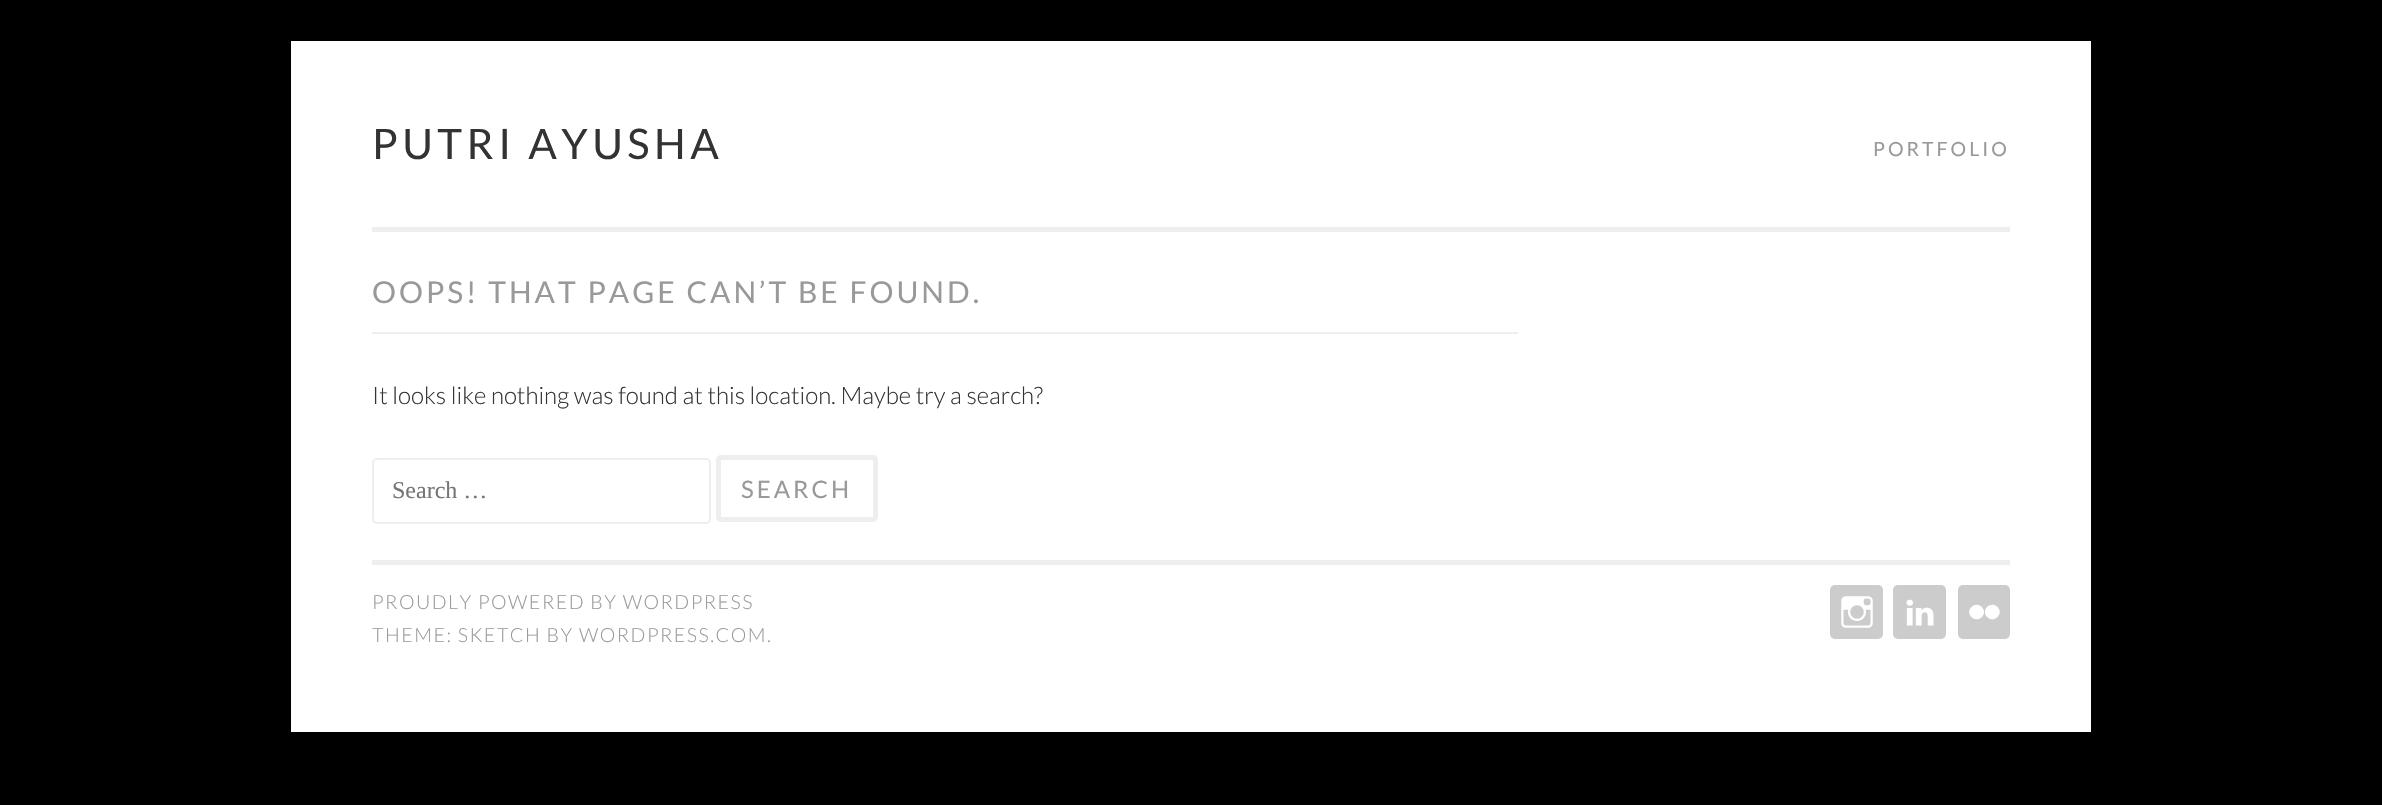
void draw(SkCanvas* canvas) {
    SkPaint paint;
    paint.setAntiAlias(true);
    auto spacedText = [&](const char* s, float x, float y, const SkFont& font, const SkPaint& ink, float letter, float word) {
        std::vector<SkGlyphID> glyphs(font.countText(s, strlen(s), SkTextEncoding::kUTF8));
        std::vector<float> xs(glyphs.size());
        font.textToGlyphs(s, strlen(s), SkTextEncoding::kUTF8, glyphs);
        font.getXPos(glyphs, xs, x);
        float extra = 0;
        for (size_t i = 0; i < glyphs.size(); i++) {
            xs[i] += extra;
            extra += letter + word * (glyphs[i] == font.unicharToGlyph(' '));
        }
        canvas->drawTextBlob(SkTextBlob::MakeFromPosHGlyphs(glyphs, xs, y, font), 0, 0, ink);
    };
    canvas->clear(0xFF000000);
    paint.setColor(0xFFFFFFFF);
    canvas->drawRect(SkRect::MakeXYWH(291, 41, 1800, 691), paint);
    paint.setColor(0xFFEEEEEE);
    canvas->drawRect(SkRect::MakeXYWH(372, 227, 1638, 5), paint);
    SkFont font1(fontMgr->matchFamilyStyle("Lato", SkFontStyle::Normal()), 42);
    font1.setSubpixel(true);
    paint.setColor(0xFF333333);
    spacedText("PUTRI AYUSHA", 372, 159, font1, paint, 4.5f, 0);
    SkFont font2(fontMgr->matchFamilyStyle("Lato", SkFontStyle::Normal()), 19.5f);
    font2.setSubpixel(true);
    paint.setColor(0xFF999999);
    spacedText("PORTFOLIO", 1873, 156, font2, paint, 3, 0);
    paint.setColor(0xFFEEEEEE);
    canvas->drawRect(SkRect::MakeXYWH(372, 332, 1146, 2), paint);
    SkFont font3(fontMgr->matchFamilyStyle("Lato", SkFontStyle::Normal()), 30);
    font3.setSubpixel(true);
    paint.setColor(0xFF999999);
    spacedText("OOPS! THAT PAGE CAN’T BE FOUND.", 372, 303, font3, paint, 3, 0);
    SkFont font4(fontMgr->matchFamilyStyle("Lato", SkFontStyle(300, SkFontStyle::kNormal_Width, SkFontStyle::kUpright_Slant)), 24);
    font4.setSubpixel(true);
    paint.setColor(0xFF333333);
    canvas->drawString("It looks like nothing was found at this location. Maybe try a search?", 372, 404, font4, paint);
    paint.setStyle(SkPaint::kStroke_Style);
    paint.setStrokeWidth(2);
    paint.setColor(0xFFEEEEEE);
    canvas->drawRoundRect(SkRect::MakeXYWH(373, 459, 337, 64), 4, 4, paint);
    SkFont font5(fontMgr->matchFamilyStyle("Liberation Serif", SkFontStyle::Normal()), 24);
    font5.setSubpixel(true);
    paint.setStyle(SkPaint::kFill_Style);
    paint.setColor(0xFF757575);
    canvas->drawString("Search …", 392, 498, font5, paint);
    paint.setStyle(SkPaint::kStroke_Style);
    paint.setStrokeWidth(5);
    paint.setColor(0xFFEEEEEE);
    canvas->drawRoundRect(SkRect::MakeXYWH(718.5f, 457.5f, 157, 62), 2.5f, 2.5f, paint);
    SkFont font6(fontMgr->matchFamilyStyle("Lato", SkFontStyle::Normal()), 24);
    font6.setSubpixel(true);
    paint.setStyle(SkPaint::kFill_Style);
    paint.setColor(0xFF999999);
    spacedText("SEARCH", 741, 498, font6, paint, 3, 0);
    paint.setColor(0xFFEEEEEE);
    canvas->drawRect(SkRect::MakeXYWH(372, 560, 1638, 5), paint);
    SkFont font7(fontMgr->matchFamilyStyle("Lato", SkFontStyle(300, SkFontStyle::kNormal_Width, SkFontStyle::kUpright_Slant)), 19.5f);
    font7.setSubpixel(true);
    paint.setColor(0xFF999999);
    spacedText("PROUDLY POWERED BY WORDPRESS", 372, 609, font7, paint, 1.5f, 0);
    spacedText("THEME: SKETCH BY WORDPRESS.COM.", 372, 642, font7, paint, 1.5f, 0);
    paint.setColor(0xFFCCCCCC);
    canvas->drawRoundRect(SkRect::MakeXYWH(1830, 585, 53, 54), 5, 5, paint);
    canvas->drawImageRect(SkImages::DeferredFromEncodedData(SkData::MakeFromFileName("img1.png")), SkRect::MakeXYWH(1841, 596, 32, 32), SkSamplingOptions());
    canvas->drawRoundRect(SkRect::MakeXYWH(1893, 585, 53, 54), 5, 5, paint);
    canvas->drawImageRect(SkImages::DeferredFromEncodedData(SkData::MakeFromFileName("img2.png")), SkRect::MakeXYWH(1906, 599, 28, 27), SkSamplingOptions());
    canvas->drawRoundRect(SkRect::MakeXYWH(1958, 585, 52, 54), 5, 5, paint);
    paint.setColor(0xFFFFFFFF);
    canvas->drawPath(SkPathBuilder().moveTo(1987, 607).cubicTo(1994, 600, 2004.5f, 610.5f, 1997.5f, 617).cubicTo(1990.5f, 624, 1980.5f, 613.5f, 1987, 607).close().moveTo(1971.5f, 607).cubicTo(1978.5f, 600, 1988.5f, 610.5f, 1982, 617).cubicTo(1975, 624, 1964.5f, 613.5f, 1971.5f, 607).close().detach(), paint);
}
